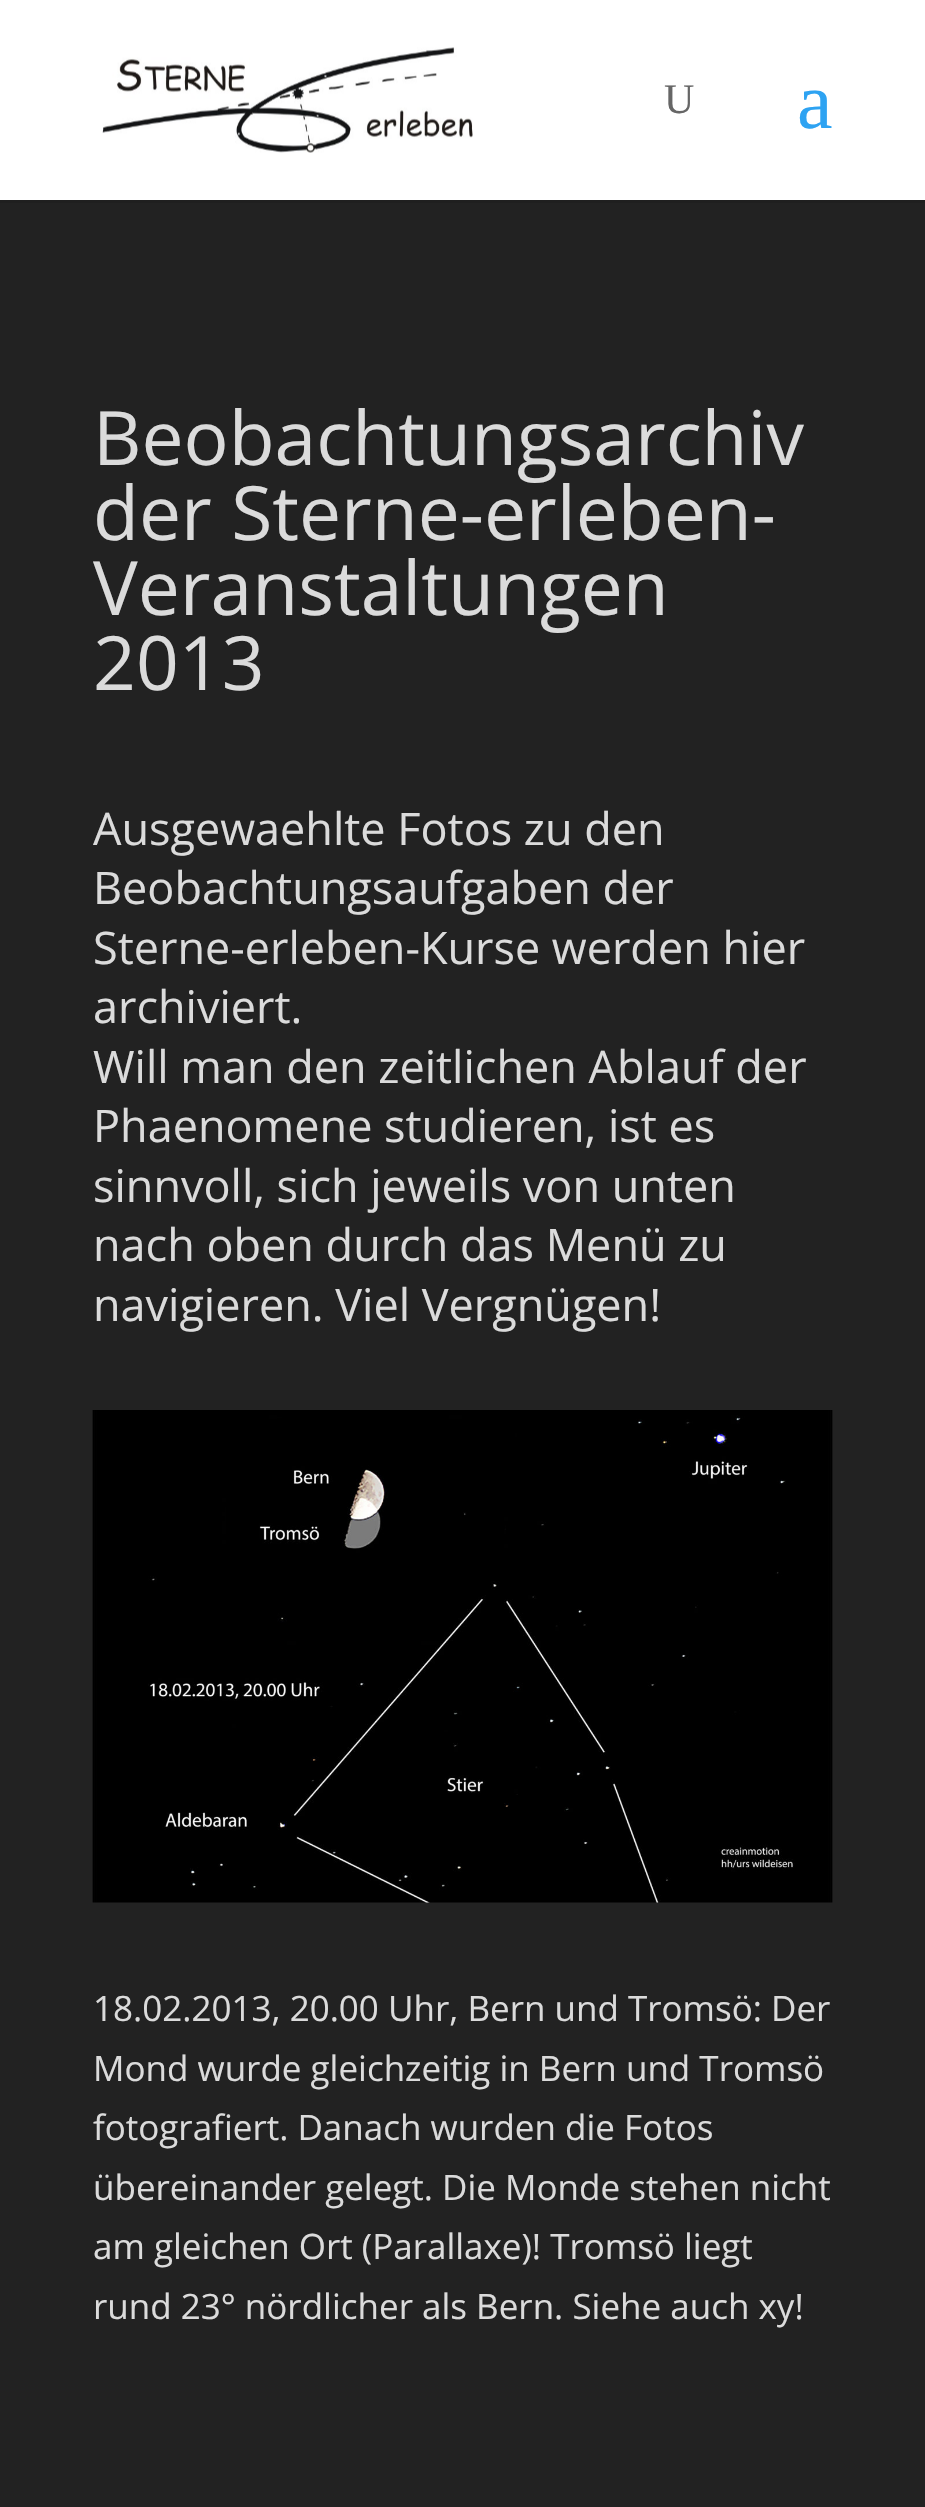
void draw(SkCanvas* canvas) {
    SkPaint paint;
    paint.setAntiAlias(true);
    canvas->clear(0xFFFFFFFF);
    paint.setColor(0xFF1F1F1F);
    canvas->drawRect(SkRect::MakeXYWH(0, 200, 925, 3), paint);
    canvas->drawImageRect(SkImages::DeferredFromEncodedData(SkData::MakeFromFileName("img1.png")), SkRect::MakeXYWH(102, 47, 371, 106), SkSamplingOptions());
    SkFont font1(fontMgr->matchFamilyStyle("Liberation Serif", SkFontStyle::Normal()), 42);
    font1.setSubpixel(true);
    paint.setColor(0xFF666666);
    canvas->drawString("U", 664, 113, font1, paint);
    SkFont font2(fontMgr->matchFamilyStyle("Liberation Serif", SkFontStyle::Normal()), 80);
    font2.setSubpixel(true);
    paint.setColor(0xFF2EA3F2);
    canvas->drawString("a", 797, 128, font2, paint);
    paint.setColor(0xFF222222);
    canvas->drawRect(SkRect::MakeXYWH(0, 203, 925, 2304), paint);
    SkFont font3(fontMgr->matchFamilyStyle("Open Sans", SkFontStyle::Normal()), 75);
    font3.setSubpixel(true);
    paint.setColor(0xFFDBDBDB);
    canvas->drawString("Beobachtungsarchiv", 93, 465, font3, paint);
    canvas->drawString("der Sterne-erleben-", 93, 540, font3, paint);
    canvas->drawString("Veranstaltungen", 93, 615, font3, paint);
    canvas->drawString("2013", 93, 690, font3, paint);
    SkFont font4(fontMgr->matchFamilyStyle("Open Sans", SkFontStyle::Normal()), 45);
    font4.setSubpixel(true);
    canvas->drawString("Ausgewaehlte Fotos zu den", 93, 845, font4, paint);
    canvas->drawString("Beobachtungsaufgaben der", 93, 904, font4, paint);
    canvas->drawString("Sterne-erleben-Kurse werden hier", 93, 964, font4, paint);
    canvas->drawString("archiviert.", 93, 1023, font4, paint);
    canvas->drawString("Will man den zeitlichen Ablauf der", 93, 1083, font4, paint);
    canvas->drawString("Phaenomene studieren, ist es", 93, 1142, font4, paint);
    canvas->drawString("sinnvoll, sich jeweils von unten", 93, 1202, font4, paint);
    canvas->drawString("nach oben durch das Menü zu", 93, 1261, font4, paint);
    canvas->drawString("navigieren. Viel Vergnügen!", 93, 1321, font4, paint);
    canvas->drawImageRect(SkImages::DeferredFromEncodedData(SkData::MakeFromFileName("img2.png")), SkRect::MakeXYWH(92, 1410, 741, 493), SkSamplingOptions());
    SkFont font5(fontMgr->matchFamilyStyle("Open Sans", SkFontStyle::Normal()), 35);
    font5.setSubpixel(true);
    canvas->drawString("18.02.2013, 20.00 Uhr, Bern und Tromsö: Der", 93, 2021, font5, paint);
    canvas->drawString("Mond wurde gleichzeitig in Bern und Tromsö", 93, 2081, font5, paint);
    canvas->drawString("fotografiert. Danach wurden die Fotos", 93, 2140, font5, paint);
    canvas->drawString("übereinander gelegt. Die Monde stehen nicht", 93, 2200, font5, paint);
    canvas->drawString("am gleichen Ort (Parallaxe)! Tromsö liegt", 93, 2259, font5, paint);
    canvas->drawString("rund 23° nördlicher als Bern. Siehe auch xy!", 93, 2319, font5, paint);
}
